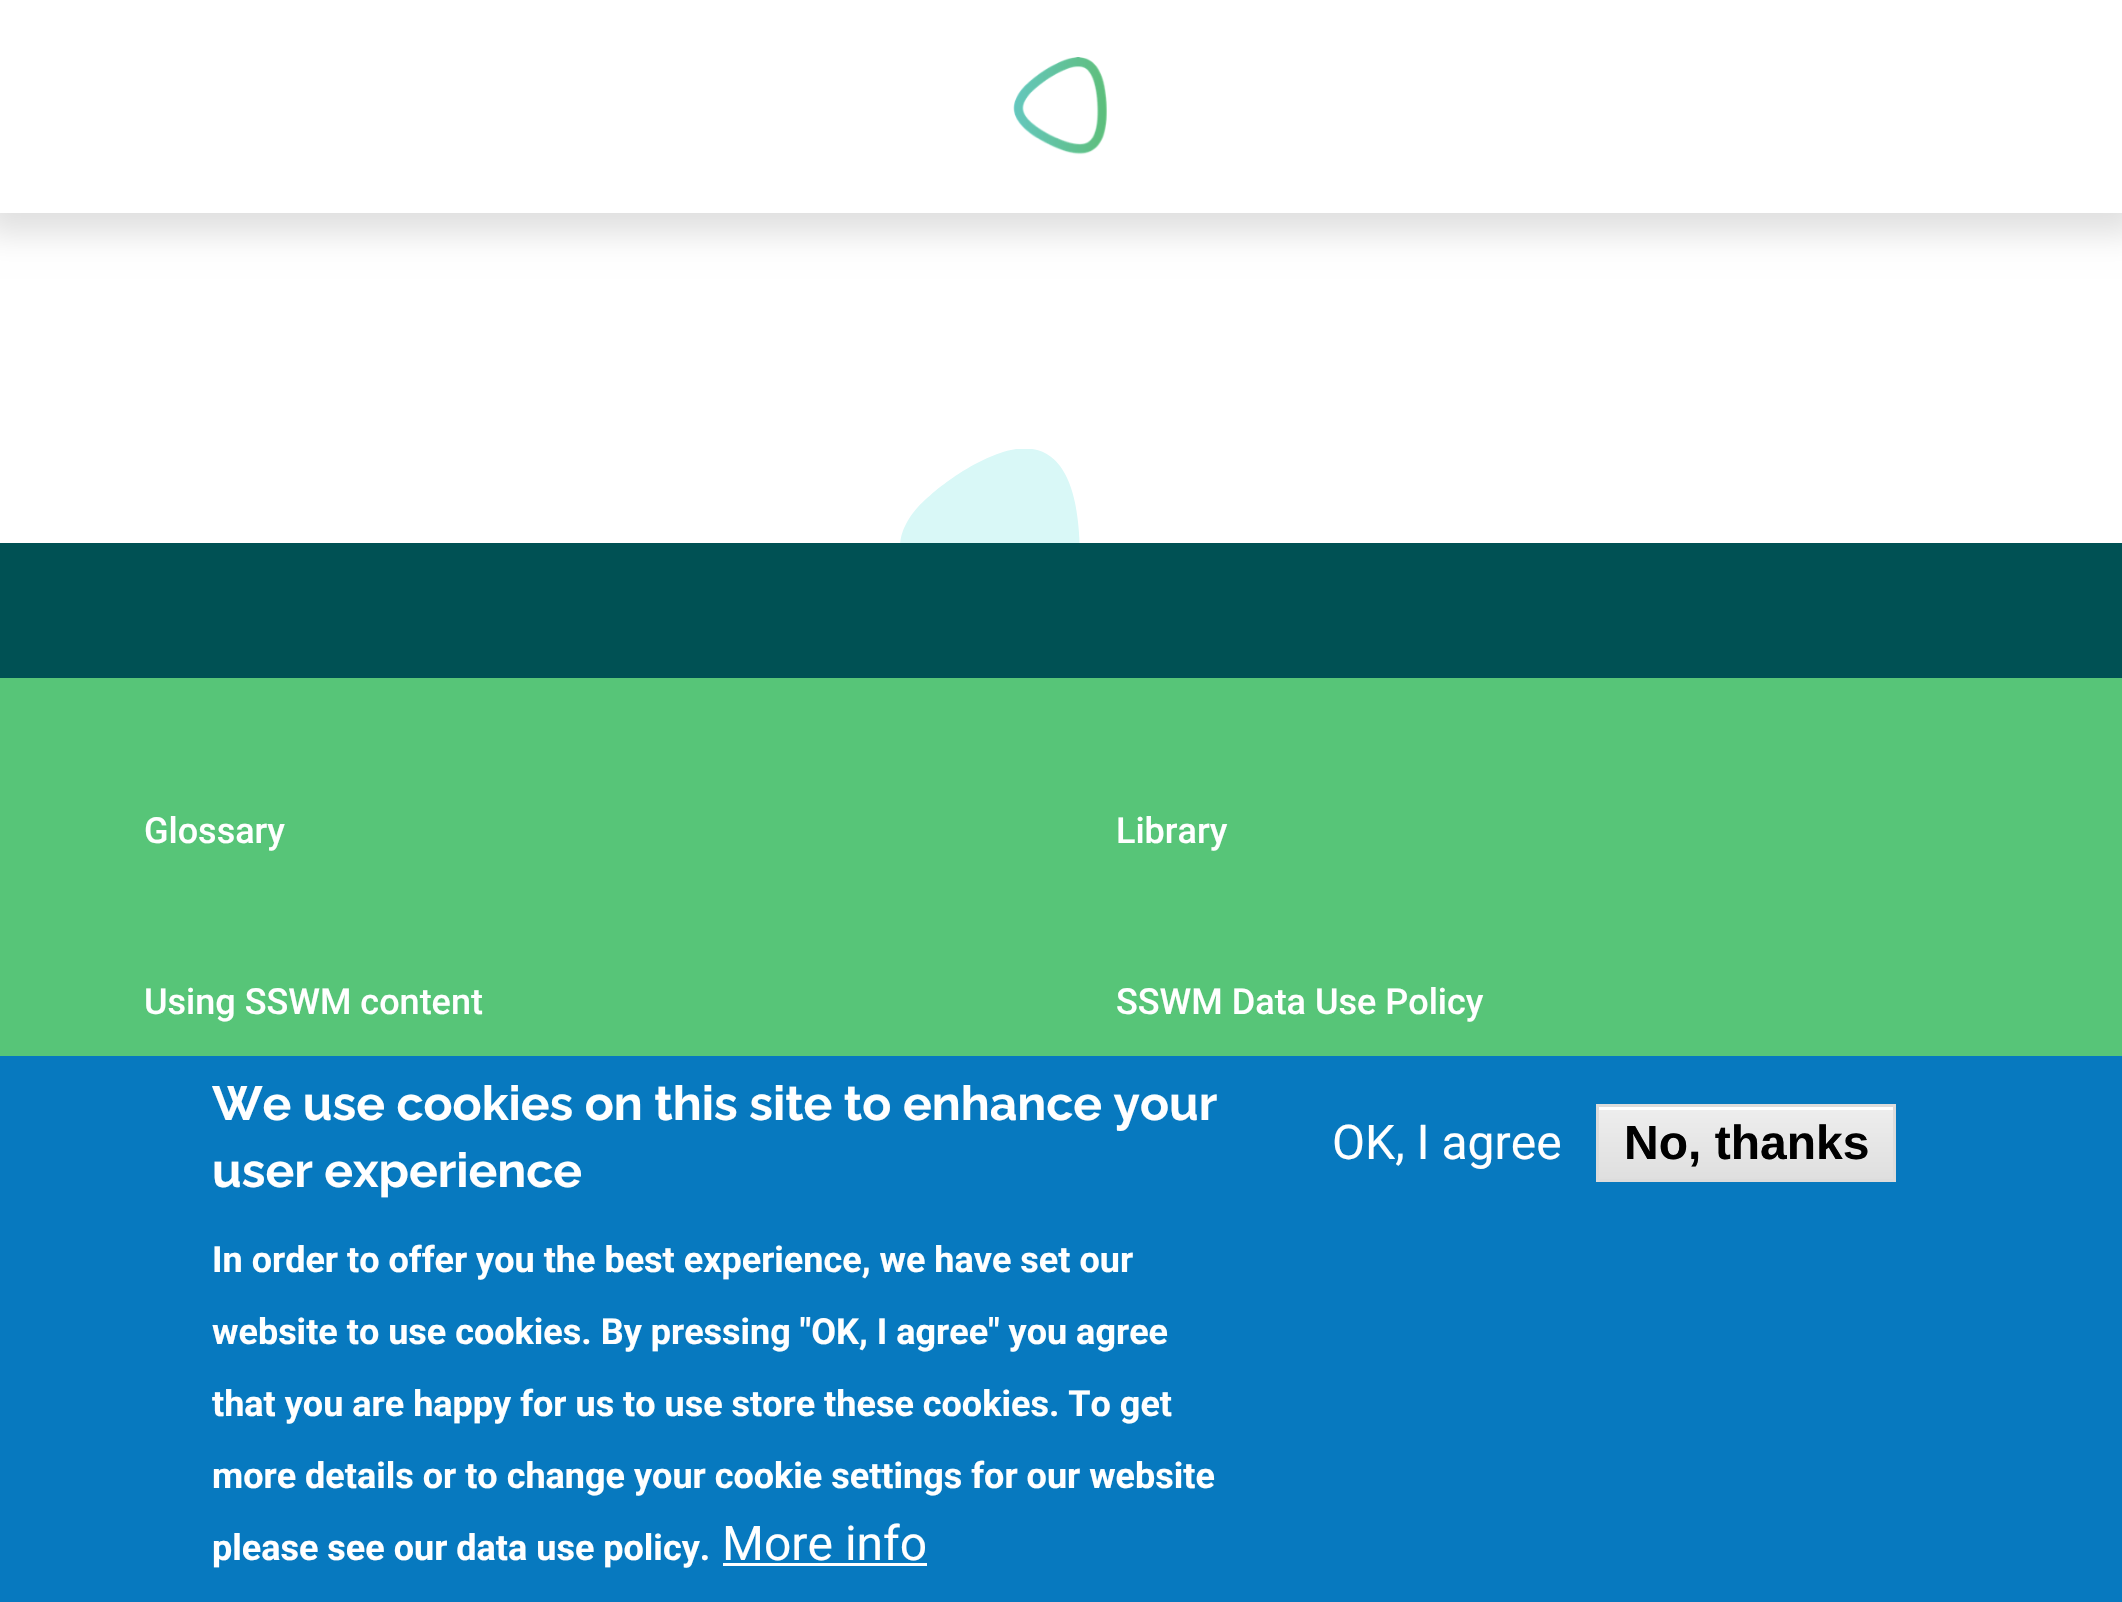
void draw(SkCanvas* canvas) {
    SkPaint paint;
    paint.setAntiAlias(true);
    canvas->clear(0xFFFFFFFF);
    paint.setColor(0x1F000000);
    paint.setMaskFilter(SkMaskFilter::MakeBlur(kNormal_SkBlurStyle, 15));
    canvas->drawRect(SkRect::MakeXYWH(-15, -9, 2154, 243), paint);
    paint.setMaskFilter(nullptr);
    paint.setColor(0xFFFFFFFF);
    canvas->drawRect(SkRect::MakeXYWH(0, 0, 2122, 213), paint);
    canvas->drawImageRect(SkImages::DeferredFromEncodedData(SkData::MakeFromFileName("img1.png")), SkRect::MakeXYWH(1013, 57, 94, 98), SkSamplingOptions());
    paint.setColor(0xFF005154);
    canvas->drawRect(SkRect::MakeXYWH(0, 543, 2122, 135), paint);
    canvas->drawImageRect(SkImages::DeferredFromEncodedData(SkData::MakeFromFileName("img2.png")), SkRect::MakeXYWH(900, 449, 180, 94), SkSamplingOptions());
    paint.setColor(0xFF57C578);
    canvas->drawRect(SkRect::MakeXYWH(0, 678, 2122, 378), paint);
    SkFont font1(fontMgr->matchFamilyStyle("Roboto", SkFontStyle(500, SkFontStyle::kNormal_Width, SkFontStyle::kUpright_Slant)), 36);
    font1.setSubpixel(true);
    paint.setColor(0xFFFFFFFF);
    canvas->drawString("Glossary", 144, 843, font1, paint);
    canvas->drawString("Library", 1116, 843, font1, paint);
    canvas->drawString("Using SSWM content", 144, 1014, font1, paint);
    canvas->drawString("SSWM Data Use Policy", 1116, 1014, font1, paint);
    paint.setColor(0xFF0779BF);
    canvas->drawRect(SkRect::MakeXYWH(0, 1056, 2122, 546), paint);
    SkFont font2(fontMgr->matchFamilyStyle("Raleway", SkFontStyle::Bold()), 48);
    font2.setSubpixel(true);
    paint.setColor(0xFFFFFFFF);
    canvas->drawString("We use cookies on this site to enhance your", 212, 1120, font2, paint);
    canvas->drawString("user experience", 212, 1187, font2, paint);
    SkFont font3(fontMgr->matchFamilyStyle("Roboto", SkFontStyle::Bold()), 36);
    font3.setSubpixel(true);
    canvas->drawString("In order to offer you the best experience, we have set our", 212, 1272, font3, paint);
    canvas->drawString("website to use cookies. By pressing \"OK, I agree\" you agree", 212, 1344, font3, paint);
    canvas->drawString("that you are happy for us to use store these cookies. To get", 212, 1416, font3, paint);
    canvas->drawString("more details or to change your cookie settings for our website", 212, 1488, font3, paint);
    canvas->drawString("please see our data use policy.", 212, 1560, font3, paint);
    SkFont font4(fontMgr->matchFamilyStyle("Roboto", SkFontStyle::Normal()), 48);
    font4.setSubpixel(true);
    canvas->drawString("More info", 722, 1560, font4, paint);
    canvas->drawRect(SkRect::MakeXYWH(723, 1563, 204, 3), paint);
    canvas->drawString("OK, I agree", 1332, 1159, font4, paint);
    {
        const SkColor colors[] = {0xFFEDEDED, 0xFFDFDFDF};
        const float stops[] = {0.05f, 1};
        const SkPoint ends[] = {{1746, 1107}, {1746, 1179}};
        paint.setShader(SkGradientShader::MakeLinear(ends, colors, stops, 2, SkTileMode::kClamp));
        paint.setAlpha(255);
    }
    canvas->drawRect(SkRect::MakeXYWH(1599, 1110, 294, 69), paint);
    paint.setShader(nullptr);
    paint.setColor(0xFFFFFFFF);
    canvas->drawRect(SkRect::MakeXYWH(1599, 1107, 294, 3), paint);
    paint.setStyle(SkPaint::kStroke_Style);
    paint.setStrokeWidth(3);
    paint.setColor(0xFFDCDCDC);
    canvas->drawRect(SkRect::MakeXYWH(1597.5f, 1105.5f, 297, 75), paint);
    SkFont font5(fontMgr->matchFamilyStyle("Liberation Sans", SkFontStyle::Bold()), 48);
    font5.setSubpixel(true);
    paint.setStyle(SkPaint::kFill_Style);
    paint.setColor(0xFF000000);
    canvas->drawString("No, thanks", 1624, 1159, font5, paint);
}
